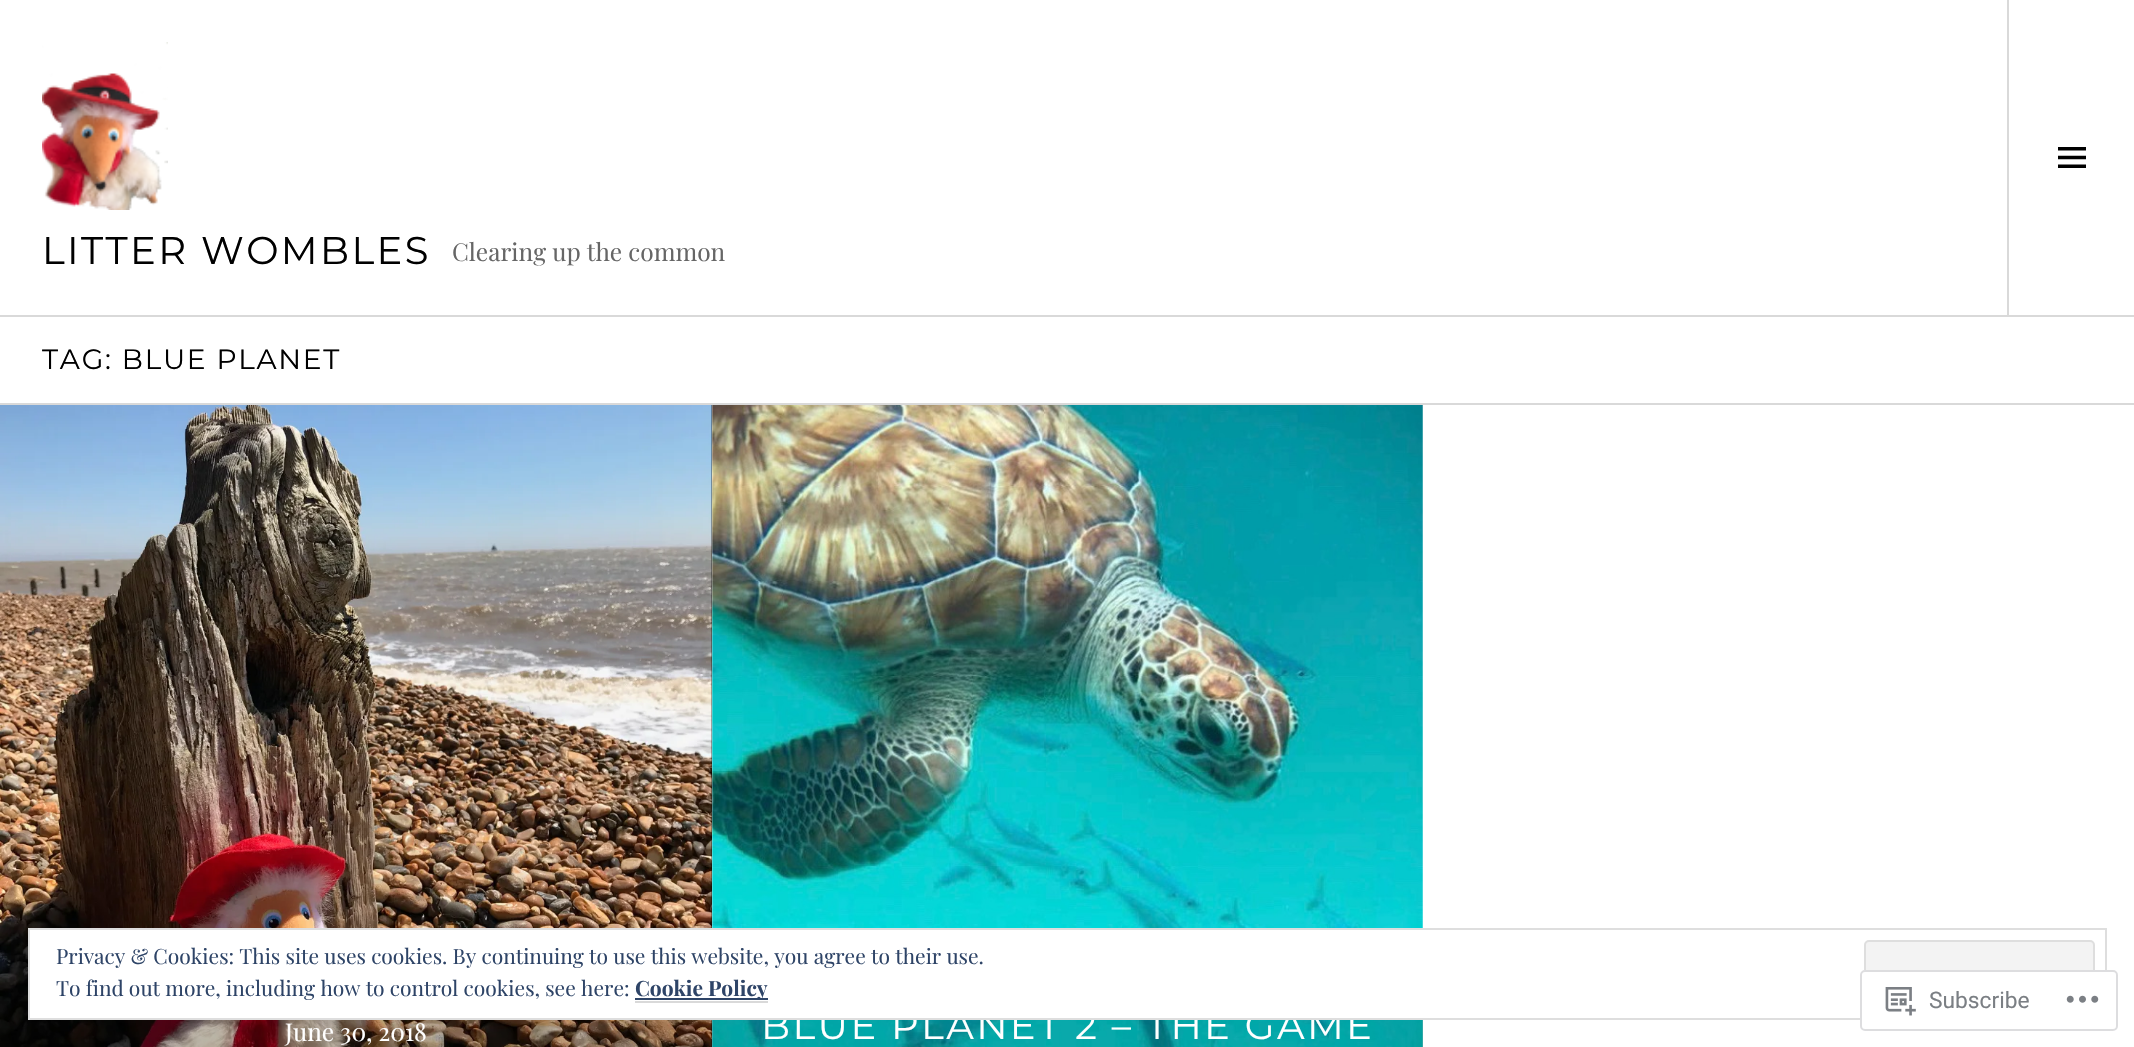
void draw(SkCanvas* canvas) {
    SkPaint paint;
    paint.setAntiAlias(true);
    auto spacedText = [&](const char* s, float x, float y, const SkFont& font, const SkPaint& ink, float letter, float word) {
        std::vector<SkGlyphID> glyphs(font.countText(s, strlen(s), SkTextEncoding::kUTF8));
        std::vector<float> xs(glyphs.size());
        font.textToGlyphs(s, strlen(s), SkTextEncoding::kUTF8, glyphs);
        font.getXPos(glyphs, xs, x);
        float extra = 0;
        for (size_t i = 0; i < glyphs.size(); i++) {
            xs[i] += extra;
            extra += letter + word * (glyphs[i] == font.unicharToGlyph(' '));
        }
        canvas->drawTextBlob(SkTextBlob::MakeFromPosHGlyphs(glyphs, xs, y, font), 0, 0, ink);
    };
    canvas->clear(0xFFFFFFFF);
    paint.setColor(0xFFD9D9D9);
    canvas->drawRect(SkRect::MakeXYWH(0, 315, 2134, 2), paint);
    canvas->drawImageRect(SkImages::DeferredFromEncodedData(SkData::MakeFromFileName("img1.png")), SkRect::MakeXYWH(42, 42, 126, 168), SkSamplingOptions());
    SkFont font1(fontMgr->matchFamilyStyle("Montserrat", SkFontStyle::Normal()), 38.5f);
    font1.setSubpixel(true);
    paint.setColor(0xFF000000);
    spacedText("LITTER WOMBLES", 42, 264, font1, paint, 2.4f, 0);
    SkFont font2(fontMgr->matchFamilyStyle("Playfair Display", SkFontStyle::Normal()), 24.5f);
    font2.setSubpixel(true);
    paint.setColor(0xFF666666);
    canvas->drawString("Clearing up the common", 452, 261, font2, paint);
    paint.setColor(0xFFD9D9D9);
    canvas->drawRect(SkRect::MakeXYWH(2007, 0, 2, 315), paint);
    canvas->drawImageRect(SkImages::DeferredFromEncodedData(SkData::MakeFromFileName("img2.png")), SkRect::MakeXYWH(2058, 147, 28, 21), SkSamplingOptions());
    canvas->drawRect(SkRect::MakeXYWH(0, 403, 2134, 2), paint);
    SkFont font3(fontMgr->matchFamilyStyle("Montserrat", SkFontStyle::Normal()), 28);
    font3.setSubpixel(true);
    paint.setColor(0xFF000000);
    spacedText("TAG: BLUE PLANET", 42, 369, font3, paint, 1.75f, 0);
    canvas->drawRect(SkRect::MakeXYWH(711, 405, 1, 642), paint);
    canvas->drawImageRect(SkImages::DeferredFromEncodedData(SkData::MakeFromFileName("img3.png")), SkRect::MakeXYWH(0, 405, 712, 642), SkSamplingOptions());
    paint.setColor(0x40000000);
    canvas->drawRect(SkRect::MakeXYWH(0, 1001, 712, 46), paint);
    paint.setColor(0xFFFFFFFF);
    canvas->drawString("June 30, 2018", 285, 1041, font2, paint);
    canvas->drawImageRect(SkImages::DeferredFromEncodedData(SkData::MakeFromFileName("img4.png")), SkRect::MakeXYWH(712, 405, 711, 642), SkSamplingOptions());
    paint.setColor(0x40000000);
    canvas->drawRect(SkRect::MakeXYWH(712, 1020, 711, 27), paint);
    paint.setColor(0xFFFFFFFF);
    spacedText("BLUE PLANET 2 – THE GAME", 761, 1039, font1, paint, 2.4f, 0);
    canvas->drawRect(SkRect::MakeXYWH(30, 930, 1393, 88), paint);
    paint.setStyle(SkPaint::kStroke_Style);
    paint.setStrokeWidth(2);
    paint.setColor(0xFFDEDEDE);
    canvas->drawRect(SkRect::MakeXYWH(29, 929, 2077, 90), paint);
    SkFont font4(fontMgr->matchFamilyStyle("Playfair Display", SkFontStyle::Normal()), 21);
    font4.setSubpixel(true);
    paint.setStyle(SkPaint::kFill_Style);
    paint.setColor(0xFF2E4467);
    canvas->drawString("Privacy & Cookies: This site uses cookies. By continuing to use this website, you agree to their use.", 56, 964, font4, paint);
    paint.setColor(0xFFF3F3F3);
    canvas->drawRoundRect(SkRect::MakeXYWH(1865, 941, 229, 66), 4, 4, paint);
    paint.setStyle(SkPaint::kStroke_Style);
    paint.setColor(0xFFDEDEDE);
    canvas->drawRoundRect(SkRect::MakeXYWH(1865, 941, 229, 66), 4, 4, paint);
    paint.setStyle(SkPaint::kFill_Style);
    paint.setColor(0xFF2E4467);
    canvas->drawString("To find out more, including how to control cookies, see here:", 56, 996, font4, paint);
    canvas->drawRect(SkRect::MakeXYWH(635, 998, 133, 2), paint);
    SkFont font5(fontMgr->matchFamilyStyle("Playfair Display", SkFontStyle::Bold()), 21);
    font5.setSubpixel(true);
    canvas->drawString("Cookie Policy", 635, 996, font5, paint);
    paint.setColor(0xFFD9D9D9);
    canvas->drawRect(SkRect::MakeXYWH(635, 1001, 133, 2), paint);
    paint.setColor(0xFAFFFFFF);
    canvas->drawRoundRect(SkRect::MakeXYWH(1860, 970, 258, 61), 5, 5, paint);
    paint.setStyle(SkPaint::kStroke_Style);
    paint.setColor(0xFADCDCDE);
    canvas->drawRoundRect(SkRect::MakeXYWH(1861, 971, 256, 59), 4, 4, paint);
    canvas->drawImageRect(SkImages::DeferredFromEncodedData(SkData::MakeFromFileName("img5.png")), SkRect::MakeXYWH(1885, 987, 31, 29), SkSamplingOptions());
    SkFont font6(fontMgr->matchFamilyStyle("Roboto", SkFontStyle::Normal()), 22.75f);
    font6.setSubpixel(true);
    paint.setStyle(SkPaint::kFill_Style);
    paint.setColor(0xFF7B7F84);
    canvas->drawString("Subscribe", 1929, 1008, font6, paint);
    canvas->drawImageRect(SkImages::DeferredFromEncodedData(SkData::MakeFromFileName("img6.png")), SkRect::MakeXYWH(2066, 995, 33, 8), SkSamplingOptions());
}
